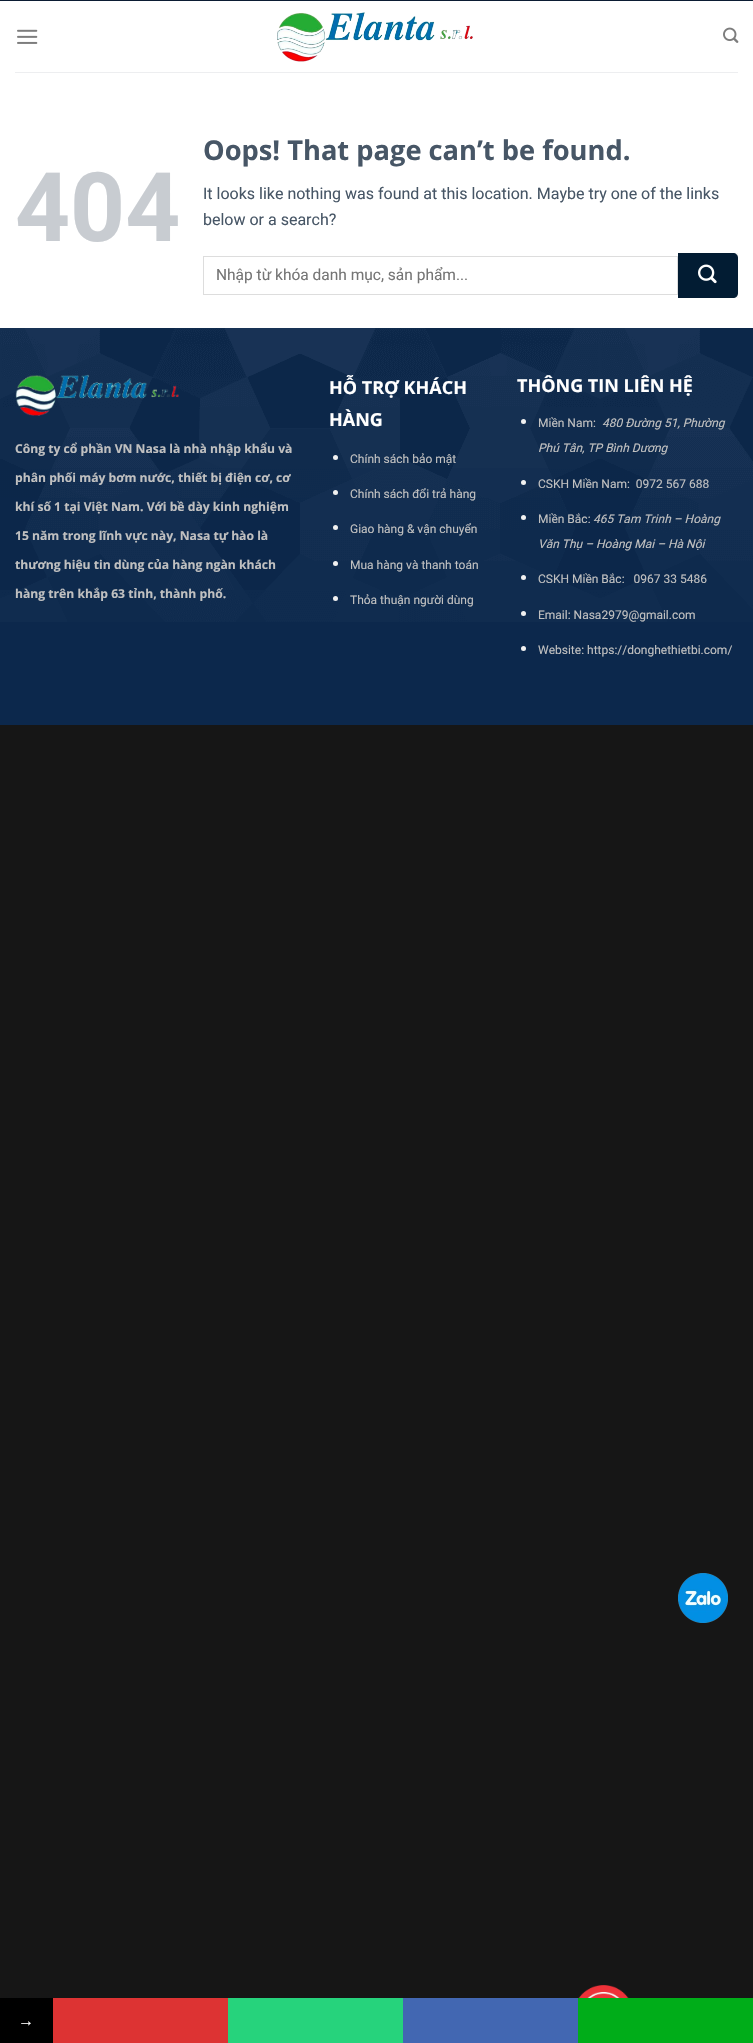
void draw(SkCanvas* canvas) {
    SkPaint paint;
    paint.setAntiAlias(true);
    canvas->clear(0xFF161616);
    paint.setColor(0xFFFFFFFF);
    canvas->drawRect(SkRect::MakeXYWH(0, 1, 753, 327), paint);
    paint.setColor(0xFF0B1C33);
    canvas->drawRect(SkRect::MakeXYWH(0, 0, 753, 1), paint);
    canvas->drawImageRect(SkImages::DeferredFromEncodedData(SkData::MakeFromFileName("img1.png")), SkRect::MakeXYWH(17, 29, 21, 15), SkSamplingOptions());
    canvas->drawImageRect(SkImages::DeferredFromEncodedData(SkData::MakeFromFileName("img2.png")), SkRect::MakeXYWH(277, 12, 196, 50), SkSamplingOptions());
    canvas->drawImageRect(SkImages::DeferredFromEncodedData(SkData::MakeFromFileName("img3.png")), SkRect::MakeXYWH(723, 27, 16, 16), SkSamplingOptions());
    paint.setColor(0xFFEDEEF0);
    canvas->drawRect(SkRect::MakeXYWH(15, 72, 723, 1), paint);
    SkFont font1(fontMgr->matchFamilyStyle("Roboto", SkFontStyle::Bold()), 96);
    font1.setSubpixel(true);
    paint.setColor(0xFFC8CCD1);
    canvas->drawString("404", 15, 241, font1, paint);
    SkFont font2(fontMgr->matchFamilyStyle("Open Sans", SkFontStyle::Bold()), 27.25f);
    font2.setSubpixel(true);
    paint.setColor(0xFF475666);
    canvas->drawString("Oops! That page can’t be found.", 203, 160, font2, paint);
    SkFont font3(fontMgr->matchFamilyStyle("Roboto", SkFontStyle::Normal()), 16);
    font3.setSubpixel(true);
    canvas->drawString("It looks like nothing was found at this location. Maybe try one of the links", 203, 199, font3, paint);
    canvas->drawString("below or a search?", 203, 225, font3, paint);
    paint.setStyle(SkPaint::kStroke_Style);
    paint.setStrokeWidth(1);
    paint.setColor(0xFFDDDDDD);
    canvas->drawRect(SkRect::MakeXYWH(203.5f, 256.5f, 474, 38), paint);
    SkFont font4(fontMgr->matchFamilyStyle("Roboto", SkFontStyle::Normal()), 15.5f);
    font4.setSubpixel(true);
    paint.setStyle(SkPaint::kFill_Style);
    paint.setColor(0xFF757575);
    canvas->drawString("Nhập từ khóa danh mục, sản phẩm...", 216, 280, font4, paint);
    paint.setColor(0xFF021C33);
    canvas->drawPath(SkPathBuilder().moveTo(678, 253).lineTo(733, 253).cubicTo(736, 253, 738, 255, 738, 258).lineTo(738, 293).cubicTo(738, 296, 736, 298, 733, 298).lineTo(678, 298).close().detach(), paint);
    paint.setStyle(SkPaint::kStroke_Style);
    paint.setColor(0x0D000000);
    canvas->drawRect(SkRect::MakeXYWH(678.5f, 253.5f, 59, 44), paint);
    canvas->drawImageRect(SkImages::DeferredFromEncodedData(SkData::MakeFromFileName("img4.png")), SkRect::MakeXYWH(698, 264, 19, 20), SkSamplingOptions());
    paint.setStyle(SkPaint::kFill_Style);
    paint.setColor(0xFF0C284C);
    canvas->drawRect(SkRect::MakeXYWH(0, 328, 753, 397), paint);
    canvas->drawImageRect(SkImages::DeferredFromEncodedData(SkData::MakeFromFileName("img5.png")), SkRect::MakeXYWH(0, 328, 753, 294), SkSamplingOptions());
    canvas->drawImageRect(SkImages::DeferredFromEncodedData(SkData::MakeFromFileName("img6.png")), SkRect::MakeXYWH(15, 374, 164, 42), SkSamplingOptions());
    SkFont font5(fontMgr->matchFamilyStyle("Open Sans", SkFontStyle::Bold()), 12.15f);
    font5.setSubpixel(true);
    paint.setColor(0xFFC0C0C0);
    canvas->drawString("Công ty cổ phần VN Nasa là nhà nhập khẩu và", 15, 453, font5, paint);
    canvas->drawString("phân phối máy bơm nước, thiết bị điện cơ, cơ", 15, 482, font5, paint);
    canvas->drawString("khí số 1 tại Việt Nam. Với bề dày kinh nghiệm", 15, 511, font5, paint);
    canvas->drawString("15 năm trong lĩnh vực này, Nasa tự hào là", 15, 540, font5, paint);
    canvas->drawString("thương hiệu tin dùng của hàng ngàn khách", 15, 569, font5, paint);
    canvas->drawString("hàng trên khắp 63 tỉnh, thành phố.", 15, 598, font5, paint);
    SkFont font6(fontMgr->matchFamilyStyle("Open Sans", SkFontStyle::Bold()), 18);
    font6.setSubpixel(true);
    paint.setColor(0xFFFFFFFF);
    canvas->drawString("HỖ TRỢ KHÁCH", 329, 394, font6, paint);
    canvas->drawString("HÀNG", 329, 426, font6, paint);
    paint.setColor(0xFFF1F1F1);
    canvas->drawCircle(335.5f, 457.5f, 2.5f, paint);
    SkFont font7(fontMgr->matchFamilyStyle("Roboto", SkFontStyle::Normal()), 12);
    font7.setSubpixel(true);
    paint.setColor(0xFFC0C0C0);
    canvas->drawString("Chính sách bảo mật", 350, 463, font7, paint);
    paint.setColor(0xFFF1F1F1);
    canvas->drawCircle(335.5f, 492.5f, 2.5f, paint);
    paint.setColor(0xFFC0C0C0);
    canvas->drawString("Chính sách đổi trả hàng", 350, 498, font7, paint);
    paint.setColor(0xFFF1F1F1);
    canvas->drawCircle(335.5f, 527.5f, 2.5f, paint);
    paint.setColor(0xFFC0C0C0);
    canvas->drawString("Giao hàng & vận chuyển", 350, 533, font7, paint);
    paint.setColor(0xFFF1F1F1);
    canvas->drawCircle(335.5f, 563.5f, 2.5f, paint);
    paint.setColor(0xFFC0C0C0);
    canvas->drawString("Mua hàng và thanh toán", 350, 569, font7, paint);
    paint.setColor(0xFFF1F1F1);
    canvas->drawCircle(335.5f, 598.5f, 2.5f, paint);
    paint.setColor(0xFFC0C0C0);
    canvas->drawString("Thỏa thuận người dùng", 350, 604, font7, paint);
    paint.setColor(0xFFFFFFFF);
    canvas->drawString("THÔNG TIN LIÊN HỆ", 517, 392, font6, paint);
    paint.setColor(0xFFF1F1F1);
    canvas->drawCircle(523.5f, 421.5f, 2.5f, paint);
    paint.setColor(0xFFC0C0C0);
    canvas->drawString("Miền Nam:", 538, 427, font7, paint);
    SkFont font8(fontMgr->matchFamilyStyle("Roboto", SkFontStyle::Italic()), 12);
    font8.setSubpixel(true);
    canvas->drawString("480 Đường 51, Phường", 602, 427, font8, paint);
    canvas->drawString("Phú Tân, TP Bình Dương", 538, 452, font8, paint);
    paint.setColor(0xFFF1F1F1);
    canvas->drawCircle(523.5f, 482.5f, 2.5f, paint);
    paint.setColor(0xFFC0C0C0);
    canvas->drawString("CSKH Miền Nam:  0972 567 688", 538, 488, font7, paint);
    paint.setColor(0xFFF1F1F1);
    canvas->drawCircle(523.5f, 517.5f, 2.5f, paint);
    paint.setColor(0xFFC0C0C0);
    canvas->drawString("Miền Bắc:", 538, 523, font7, paint);
    canvas->drawString("465 Tam Trinh – Hoàng", 593, 523, font8, paint);
    canvas->drawString("Văn Thụ – Hoàng Mai – Hà Nội", 538, 548, font8, paint);
    paint.setColor(0xFFF1F1F1);
    canvas->drawCircle(523.5f, 577.5f, 2.5f, paint);
    paint.setColor(0xFFC0C0C0);
    canvas->drawString("CSKH Miền Bắc:   0967 33 5486", 538, 583, font7, paint);
    paint.setColor(0xFFF1F1F1);
    canvas->drawCircle(523.5f, 613.5f, 2.5f, paint);
    paint.setColor(0xFFC0C0C0);
    canvas->drawString("Email: Nasa2979@gmail.com", 538, 619, font7, paint);
    paint.setColor(0xFFF1F1F1);
    canvas->drawCircle(523.5f, 648.5f, 2.5f, paint);
    paint.setColor(0xFFC0C0C0);
    canvas->drawString("Website: https://donghethietbi.com/", 538, 654, font7, paint);
    canvas->drawImageRect(SkImages::DeferredFromEncodedData(SkData::MakeFromFileName("img7.png")), SkRect::MakeXYWH(678, 1573, 50, 50), SkSamplingOptions());
    canvas->drawImageRect(SkImages::DeferredFromEncodedData(SkData::MakeFromFileName("img8.png")), SkRect::MakeXYWH(578, 1985, 51, 13), SkSamplingOptions());
    paint.setColor(0xFF000000);
    canvas->drawRect(SkRect::MakeXYWH(0, 1998, 53, 45), paint);
    SkFont font9(fontMgr->matchFamilyStyle("Liberation Serif", SkFontStyle::Normal()), 16);
    font9.setSubpixel(true);
    paint.setColor(0xFFFFFFFF);
    canvas->drawString("→", 18, 2026, font9, paint);
    paint.setColor(0xFFDD3333);
    canvas->drawRect(SkRect::MakeXYWH(53, 1998, 175, 45), paint);
    paint.setColor(0xFF26D37C);
    canvas->drawRect(SkRect::MakeXYWH(228, 1998, 175, 45), paint);
    paint.setColor(0xFF4267B2);
    canvas->drawRect(SkRect::MakeXYWH(403, 1998, 175, 45), paint);
    paint.setColor(0xFF00AD19);
    canvas->drawRect(SkRect::MakeXYWH(578, 1998, 175, 45), paint);
}
